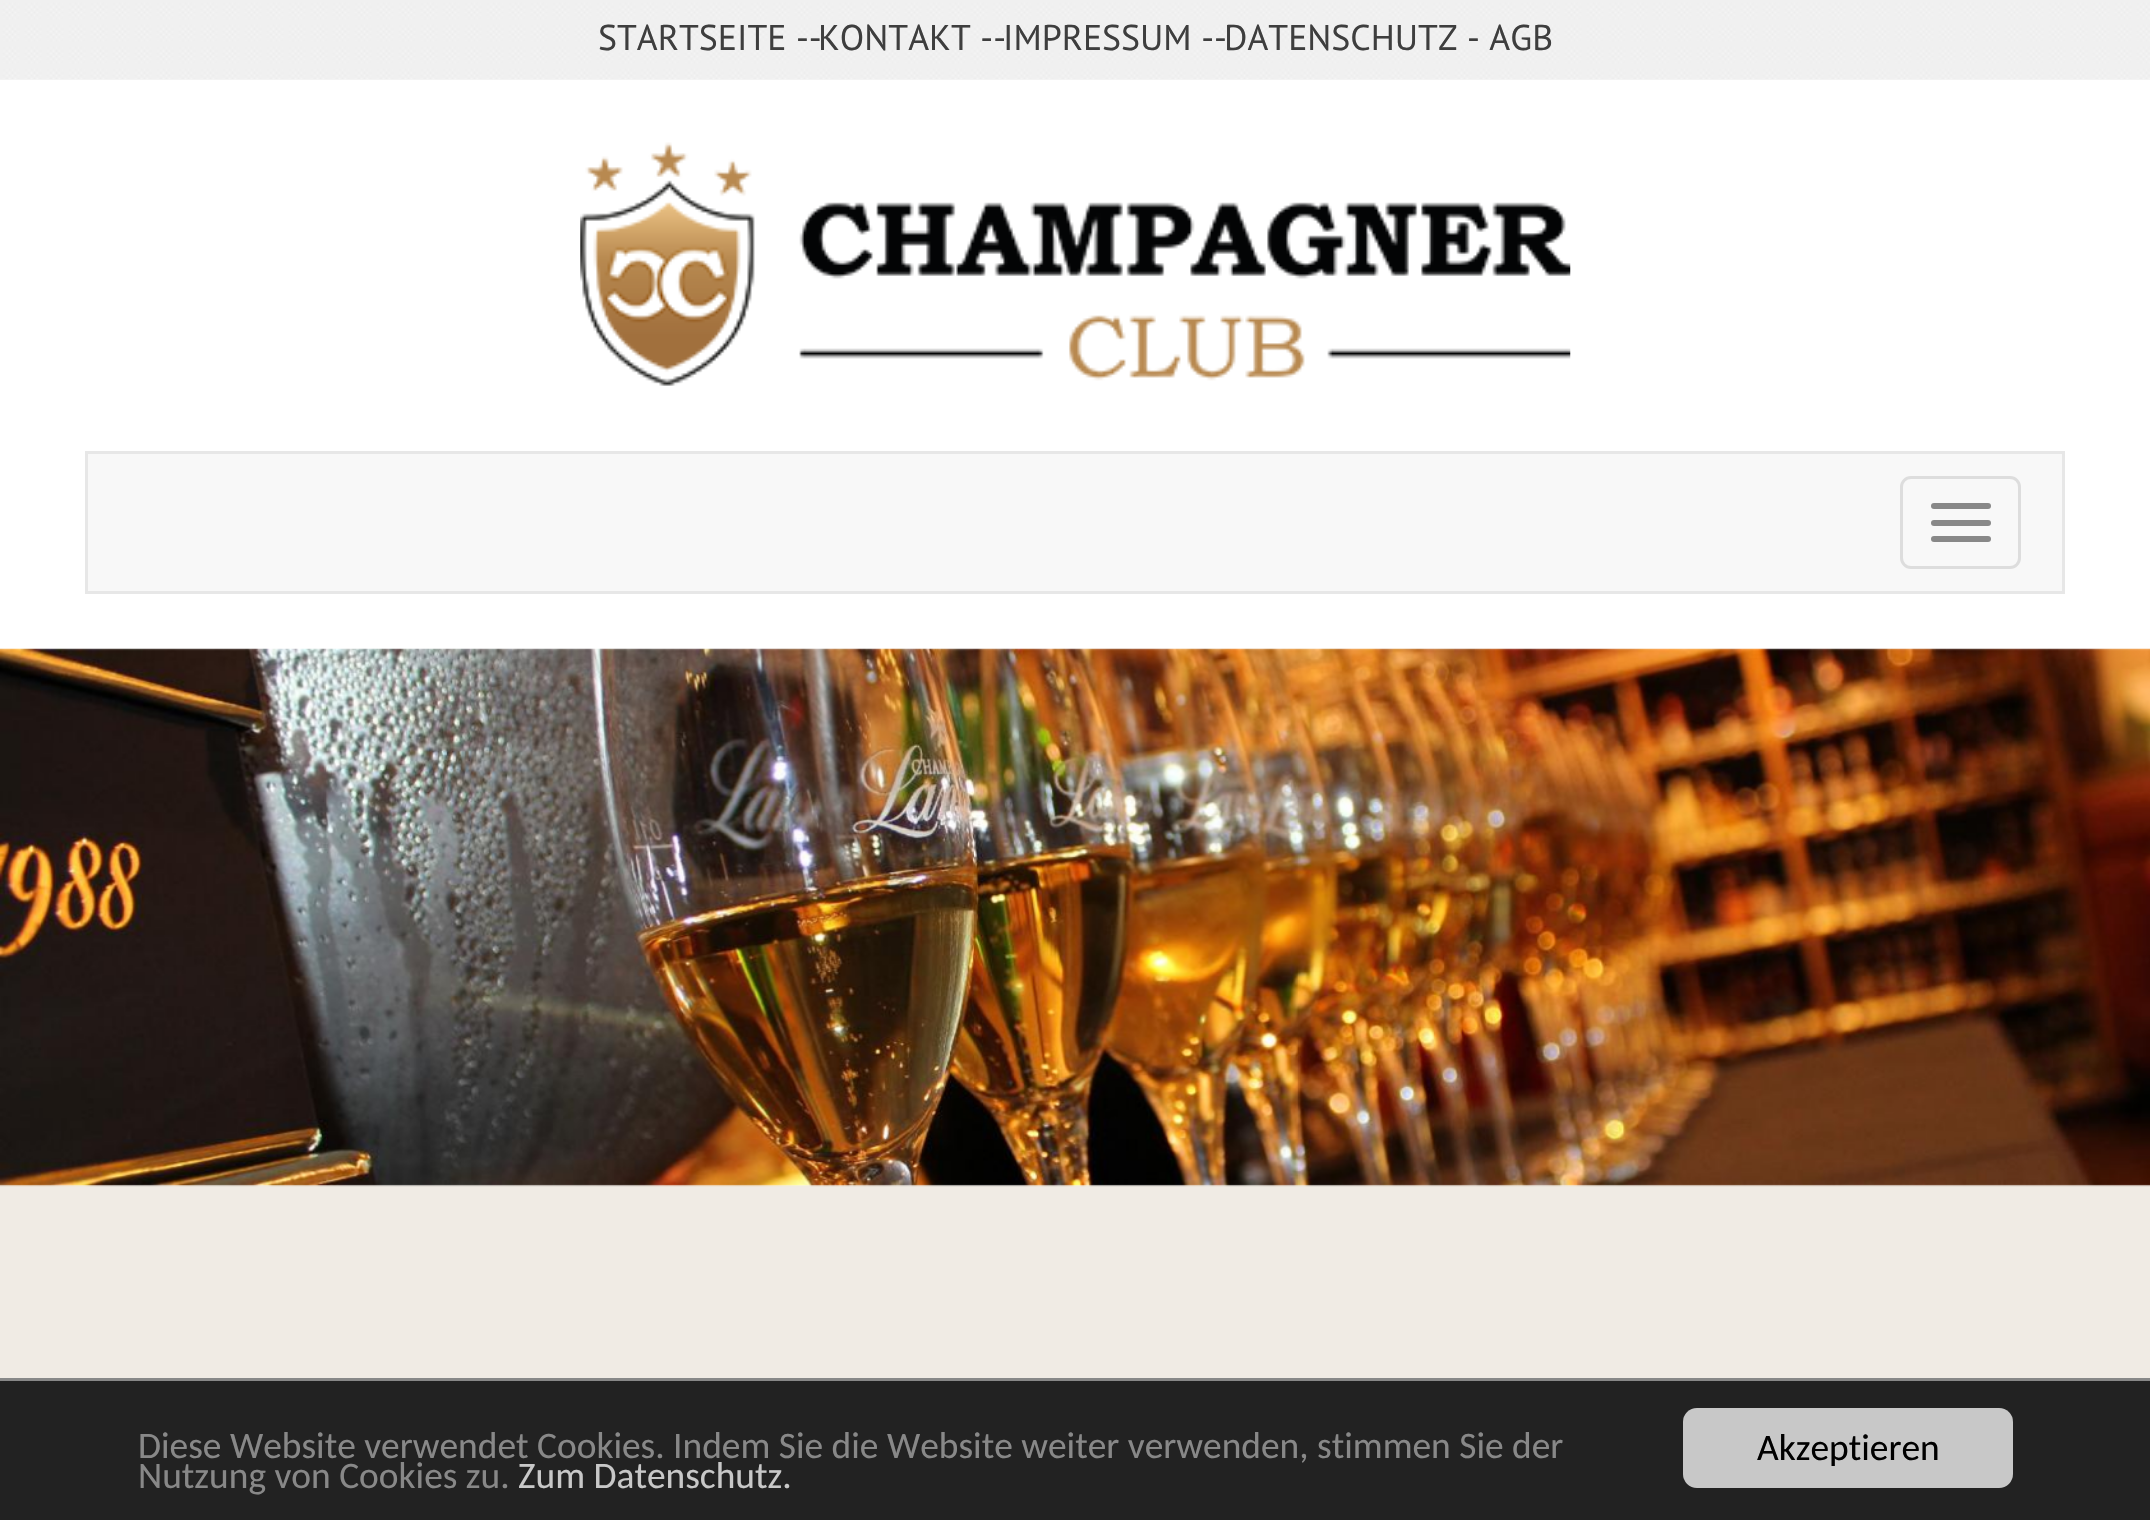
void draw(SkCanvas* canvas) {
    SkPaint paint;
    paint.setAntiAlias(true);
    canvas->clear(0xFFFFFFFF);
    canvas->drawImageRect(SkImages::DeferredFromEncodedData(SkData::MakeFromFileName("img1.png")), SkRect::MakeXYWH(0, 0, 2150, 80), SkSamplingOptions());
    SkFont font1(fontMgr->matchFamilyStyle("PT Sans", SkFontStyle::Normal()), 35.75f);
    font1.setSubpixel(true);
    paint.setColor(0xFF3E3E3E);
    canvas->drawString("STARTSEITE --", 598, 50, font1, paint);
    canvas->drawString("KONTAKT --", 818, 50, font1, paint);
    canvas->drawString("IMPRESSUM --", 1003, 50, font1, paint);
    canvas->drawString("DATENSCHUTZ - AGB", 1224, 50, font1, paint);
    canvas->drawImageRect(SkImages::DeferredFromEncodedData(SkData::MakeFromFileName("img2.png")), SkRect::MakeXYWH(580, 142, 991, 244), SkSamplingOptions());
    paint.setColor(0xFFF8F8F8);
    canvas->drawRect(SkRect::MakeXYWH(86.5f, 452.5f, 1977, 140), paint);
    paint.setStyle(SkPaint::kStroke_Style);
    paint.setStrokeWidth(3);
    paint.setColor(0xFFE7E7E7);
    canvas->drawRect(SkRect::MakeXYWH(86.5f, 452.5f, 1977, 140), paint);
    paint.setColor(0xFFDDDDDD);
    canvas->drawRoundRect(SkRect::MakeXYWH(1901.5f, 477.5f, 118, 90), 9.5f, 9.5f, paint);
    paint.setStyle(SkPaint::kFill_Style);
    paint.setColor(0xFF888888);
    canvas->drawRoundRect(SkRect::MakeXYWH(1931, 503, 60, 6), 3, 3, paint);
    canvas->drawRoundRect(SkRect::MakeXYWH(1931, 520, 60, 6), 3, 3, paint);
    canvas->drawRoundRect(SkRect::MakeXYWH(1931, 536, 60, 6), 3, 3, paint);
    canvas->drawImageRect(SkImages::DeferredFromEncodedData(SkData::MakeFromFileName("img4.png")), SkRect::MakeXYWH(0, 1185, 2150, 193), SkSamplingOptions());
    canvas->drawImageRect(SkImages::DeferredFromEncodedData(SkData::MakeFromFileName("img3.png")), SkRect::MakeXYWH(0, 648, 2150, 539), SkSamplingOptions());
    paint.setColor(0xFF222222);
    canvas->drawRect(SkRect::MakeXYWH(0, 1381, 2150, 139), paint);
    paint.setColor(0xFF888888);
    canvas->drawRect(SkRect::MakeXYWH(0, 1378, 2150, 3), paint);
    SkFont font2(fontMgr->matchFamilyStyle("Carlito", SkFontStyle::Normal()), 37.4f);
    font2.setSubpixel(true);
    canvas->drawString("Diese Website verwendet Cookies. Indem Sie die Website weiter verwenden, stimmen Sie der", 138, 1458, font2, paint);
    canvas->drawString("Nutzung von Cookies zu.", 138, 1488, font2, paint);
    paint.setColor(0xFFC8C8C8);
    canvas->drawString("Zum Datenschutz.", 518, 1488, font2, paint);
    canvas->drawRoundRect(SkRect::MakeXYWH(1683, 1408, 330, 80), 14, 14, paint);
    paint.setColor(0xFF000000);
    canvas->drawString("Akzeptieren", 1757, 1460, font2, paint);
}
